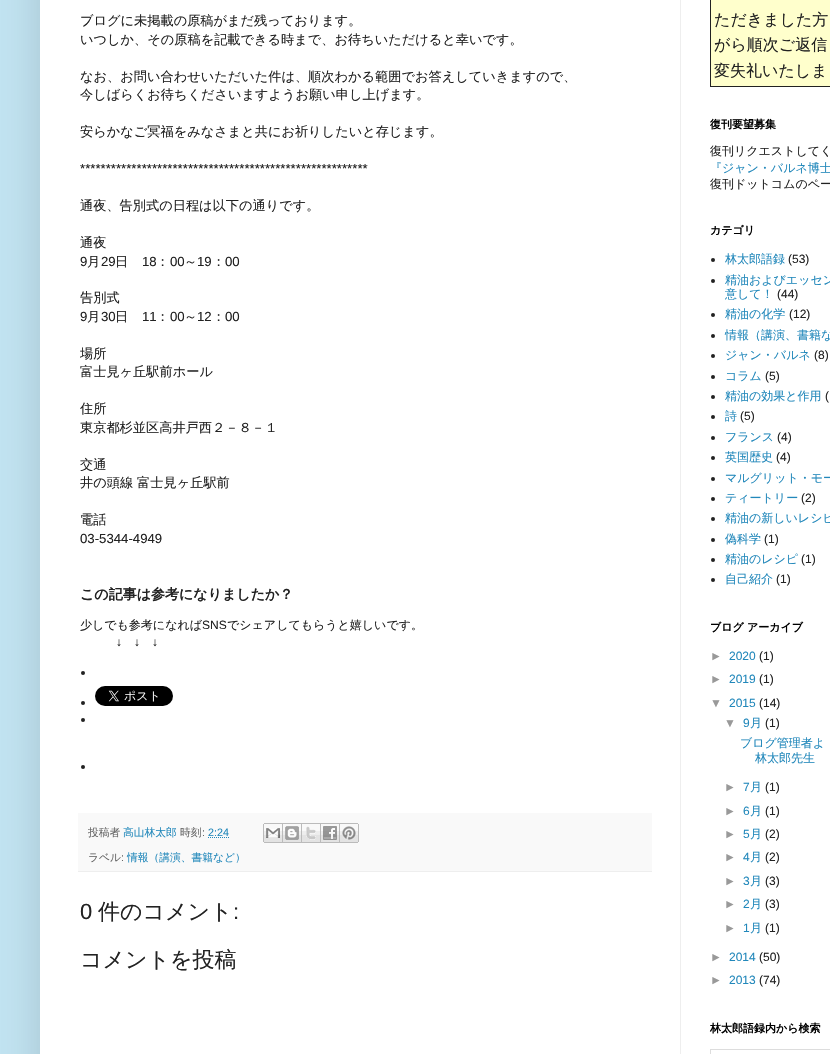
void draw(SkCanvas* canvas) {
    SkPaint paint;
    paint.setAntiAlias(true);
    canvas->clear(0xFFC2E4F2);
    paint.setColor(0x26000000);
    paint.setMaskFilter(SkMaskFilter::MakeBlur(kNormal_SkBlurStyle, 20));
    canvas->drawRect(SkRect::MakeXYWH(40, -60, 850, 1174), paint);
    paint.setMaskFilter(nullptr);
    paint.setColor(0xFFFFFFFF);
    canvas->drawRect(SkRect::MakeXYWH(40, 0, 790, 1054), paint);
    paint.setColor(0xFFEEEEEE);
    canvas->drawRect(SkRect::MakeXYWH(680, 0, 1, 1054), paint);
    SkFont font1(fontMgr->matchFamilyStyle("WenQuanYi Zen Hei", SkFontStyle(500, SkFontStyle::kNormal_Width, SkFontStyle::kUpright_Slant)), 13.2f);
    font1.setSubpixel(true);
    paint.setColor(0xFF222222);
    canvas->drawString("ブログに未掲載の原稿がまだ残っております。", 80, 25, font1, paint);
    canvas->drawString("いつしか、その原稿を記載できる時まで、お待ちいただけると幸いです。", 80, 44, font1, paint);
    canvas->drawString("なお、お問い合わせいただいた件は、順次わかる範囲でお答えしていきますので、", 80, 81, font1, paint);
    canvas->drawString("今しばらくお待ちくださいますようお願い申し上げます。", 80, 99, font1, paint);
    canvas->drawString("安らかなご冥福をみなさまと共にお祈りしたいと存じます。", 80, 136, font1, paint);
    SkFont font2(fontMgr->matchFamilyStyle("Liberation Sans", SkFontStyle::Normal()), 13.2f);
    font2.setSubpixel(true);
    canvas->drawString("********************************************************", 80, 173, font2, paint);
    canvas->drawString("通夜、告別式の日程は以下の通りです。", 80, 210, font1, paint);
    canvas->drawString("通夜", 80, 247, font1, paint);
    canvas->drawString("9", 80, 266, font2, paint);
    canvas->drawString("月", 87, 266, font1, paint);
    canvas->drawString("29", 101, 266, font2, paint);
    canvas->drawString("日", 115, 266, font1, paint);
    canvas->drawString("18", 142, 266, font2, paint);
    canvas->drawString("：", 156, 266, font1, paint);
    canvas->drawString("00", 170, 266, font2, paint);
    canvas->drawString("～", 184, 266, font1, paint);
    canvas->drawString("19", 197, 266, font2, paint);
    canvas->drawString("：", 212, 266, font1, paint);
    canvas->drawString("00", 225, 266, font2, paint);
    canvas->drawString("告別式", 80, 302, font1, paint);
    canvas->drawString("9", 80, 321, font2, paint);
    canvas->drawString("月", 87, 321, font1, paint);
    canvas->drawString("30", 101, 321, font2, paint);
    canvas->drawString("日", 115, 321, font1, paint);
    canvas->drawString("11", 142, 321, font2, paint);
    canvas->drawString("：", 156, 321, font1, paint);
    canvas->drawString("00", 170, 321, font2, paint);
    canvas->drawString("～", 184, 321, font1, paint);
    canvas->drawString("12", 197, 321, font2, paint);
    canvas->drawString("：", 212, 321, font1, paint);
    canvas->drawString("00", 225, 321, font2, paint);
    canvas->drawString("場所", 80, 358, font1, paint);
    canvas->drawString("富士見ヶ丘駅前ホール", 80, 376, font1, paint);
    canvas->drawString("住所", 80, 413, font1, paint);
    canvas->drawString("東京都杉並区高井戸西２－８－１", 80, 432, font1, paint);
    canvas->drawString("交通", 80, 469, font1, paint);
    canvas->drawString("井の頭線 富士見ヶ丘駅前", 80, 487, font1, paint);
    canvas->drawString("電話", 80, 524, font1, paint);
    canvas->drawString("03-5344-4949", 80, 543, font2, paint);
    SkFont font3(fontMgr->matchFamilyStyle("WenQuanYi Zen Hei", SkFontStyle::Bold()), 14);
    font3.setSubpixel(true);
    canvas->drawString("この記事は参考になりましたか？", 80, 599, font3, paint);
    SkFont font4(fontMgr->matchFamilyStyle("WenQuanYi Zen Hei", SkFontStyle(500, SkFontStyle::kNormal_Width, SkFontStyle::kUpright_Slant)), 12);
    font4.setSubpixel(true);
    canvas->drawString("少しでも参考になれば", 80, 629, font4, paint);
    SkFont font5(fontMgr->matchFamilyStyle("Liberation Sans", SkFontStyle::Normal()), 12);
    font5.setSubpixel(true);
    canvas->drawString("SNS", 202, 629, font5, paint);
    canvas->drawString("でシェアしてもらうと嬉しいです。", 227, 629, font4, paint);
    canvas->drawString("↓", 116, 646, font5, paint);
    canvas->drawString("↓", 134, 646, font5, paint);
    canvas->drawString("↓", 152, 646, font5, paint);
    canvas->drawCircle(83, 673, 2, paint);
    canvas->drawCircle(83, 703, 2, paint);
    canvas->drawImageRect(SkImages::DeferredFromEncodedData(SkData::MakeFromFileName("img1.png")), SkRect::MakeXYWH(95, 686, 78, 20), SkSamplingOptions());
    canvas->drawCircle(83, 720, 2, paint);
    canvas->drawCircle(83, 767, 2, paint);
    paint.setColor(0xFFF9F9F9);
    canvas->drawRect(SkRect::MakeXYWH(78, 813, 574, 58), paint);
    paint.setColor(0xFFEEEEEE);
    canvas->drawRect(SkRect::MakeXYWH(78, 871, 574, 1), paint);
    SkFont font6(fontMgr->matchFamilyStyle("WenQuanYi Zen Hei", SkFontStyle(500, SkFontStyle::kNormal_Width, SkFontStyle::kUpright_Slant)), 10.75f);
    font6.setSubpixel(true);
    paint.setColor(0xFF666666);
    canvas->drawString("投稿者", 88, 836, font6, paint);
    paint.setColor(0xFF2288BB);
    canvas->drawString("高山林太郎", 123, 836, font6, paint);
    paint.setColor(0xFF666666);
    canvas->drawString("時刻", 180, 836, font6, paint);
    SkFont font7(fontMgr->matchFamilyStyle("Liberation Sans", SkFontStyle::Normal()), 10.75f);
    font7.setSubpixel(true);
    canvas->drawString(":", 202, 836, font7, paint);
    paint.setColor(0xFF2288BB);
    canvas->drawString("2:24", 208, 836, font7, paint);
    paint.setStyle(SkPaint::kStroke_Style);
    paint.setStrokeWidth(1);
    paint.setPathEffect(SkDashPathEffect::Make({{1, 1}}, 0));
    canvas->drawPath(SkPathBuilder().moveTo(208, 837.5f).lineTo(229, 837.5f).detach(), paint);
    paint.setPathEffect(nullptr);
    canvas->drawImageRect(SkImages::DeferredFromEncodedData(SkData::MakeFromFileName("img2.png")), SkRect::MakeXYWH(263, 823, 20, 20), SkSamplingOptions());
    canvas->drawImageRect(SkImages::DeferredFromEncodedData(SkData::MakeFromFileName("img3.png")), SkRect::MakeXYWH(283, 823, 19, 20), SkSamplingOptions());
    canvas->drawImageRect(SkImages::DeferredFromEncodedData(SkData::MakeFromFileName("img4.png")), SkRect::MakeXYWH(302, 823, 19, 20), SkSamplingOptions());
    canvas->drawImageRect(SkImages::DeferredFromEncodedData(SkData::MakeFromFileName("img5.png")), SkRect::MakeXYWH(321, 823, 19, 20), SkSamplingOptions());
    canvas->drawImageRect(SkImages::DeferredFromEncodedData(SkData::MakeFromFileName("img6.png")), SkRect::MakeXYWH(340, 823, 19, 20), SkSamplingOptions());
    paint.setStyle(SkPaint::kFill_Style);
    paint.setColor(0xFF666666);
    canvas->drawString("ラベル", 88, 861, font6, paint);
    canvas->drawString(":", 121, 861, font7, paint);
    paint.setColor(0xFF2288BB);
    canvas->drawString("情報（講演、書籍など）", 127, 861, font6, paint);
    SkFont font8(fontMgr->matchFamilyStyle("Liberation Sans", SkFontStyle::Normal()), 22);
    font8.setSubpixel(true);
    paint.setColor(0xFF222222);
    canvas->drawString("0", 80, 919, font8, paint);
    SkFont font9(fontMgr->matchFamilyStyle("WenQuanYi Zen Hei", SkFontStyle(500, SkFontStyle::kNormal_Width, SkFontStyle::kUpright_Slant)), 22);
    font9.setSubpixel(true);
    canvas->drawString("件のコメント", 98, 919, font9, paint);
    canvas->drawString(":", 233, 919, font8, paint);
    canvas->drawString("コメントを投稿", 80, 967, font9, paint);
    paint.setColor(0xFFFFFFCC);
    canvas->drawRect(SkRect::MakeXYWH(710.5f, -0.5f, 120, 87), paint);
    paint.setStyle(SkPaint::kStroke_Style);
    paint.setColor(0xFF222222);
    canvas->drawRect(SkRect::MakeXYWH(710.5f, -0.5f, 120, 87), paint);
    SkFont font10(fontMgr->matchFamilyStyle("WenQuanYi Zen Hei", SkFontStyle(500, SkFontStyle::kNormal_Width, SkFontStyle::kUpright_Slant)), 16);
    font10.setSubpixel(true);
    paint.setStyle(SkPaint::kFill_Style);
    canvas->drawString("ただきました方", 714, 25, font10, paint);
    canvas->drawString("がら順次ご返信", 714, 50, font10, paint);
    canvas->drawString("変失礼いたしま", 714, 76, font10, paint);
    SkFont font11(fontMgr->matchFamilyStyle("WenQuanYi Zen Hei", SkFontStyle::Bold()), 11);
    font11.setSubpixel(true);
    paint.setColor(0xFF000000);
    canvas->drawString("復刊要望募集", 710, 128, font11, paint);
    paint.setColor(0xFF222222);
    canvas->drawString("復刊リクエストしてく", 710, 155, font4, paint);
    paint.setColor(0xFF2288BB);
    canvas->drawString("『ジャン・バルネ博士", 710, 172, font4, paint);
    paint.setColor(0xFF222222);
    canvas->drawString("復刊ドットコムのペー", 710, 188, font4, paint);
    paint.setColor(0xFF000000);
    canvas->drawString("カテゴリ", 710, 234, font11, paint);
    paint.setColor(0xFF222222);
    canvas->drawCircle(713, 260, 2, paint);
    paint.setColor(0xFF2288BB);
    canvas->drawString("林太郎語録", 725, 263, font4, paint);
    paint.setColor(0xFF222222);
    canvas->drawString("(53)", 788, 263, font5, paint);
    canvas->drawCircle(713, 281, 2, paint);
    paint.setColor(0xFF2288BB);
    canvas->drawString("精油およびエッセン", 725, 284, font4, paint);
    canvas->drawString("意して！", 725, 298, font4, paint);
    paint.setColor(0xFF222222);
    canvas->drawString("(44)", 777, 298, font5, paint);
    canvas->drawCircle(713, 315, 2, paint);
    paint.setColor(0xFF2288BB);
    canvas->drawString("精油の化学", 725, 318, font4, paint);
    paint.setColor(0xFF222222);
    canvas->drawString("(12)", 789, 318, font5, paint);
    canvas->drawCircle(713, 336, 2, paint);
    paint.setColor(0xFF2288BB);
    canvas->drawString("情報（講演、書籍な", 725, 339, font4, paint);
    paint.setColor(0xFF222222);
    canvas->drawCircle(713, 356, 2, paint);
    paint.setColor(0xFF2288BB);
    canvas->drawString("ジャン・バルネ", 725, 359, font4, paint);
    paint.setColor(0xFF222222);
    canvas->drawString("(8)", 814, 359, font5, paint);
    canvas->drawCircle(713, 377, 2, paint);
    paint.setColor(0xFF2288BB);
    canvas->drawString("コラム", 725, 380, font4, paint);
    paint.setColor(0xFF222222);
    canvas->drawString("(5)", 765, 380, font5, paint);
    canvas->drawCircle(713, 397, 2, paint);
    paint.setColor(0xFF2288BB);
    canvas->drawString("精油の効果と作用", 725, 400, font4, paint);
    paint.setColor(0xFF222222);
    canvas->drawString("(", 825, 400, font5, paint);
    canvas->drawCircle(713, 417, 2, paint);
    paint.setColor(0xFF2288BB);
    canvas->drawString("詩", 725, 420, font4, paint);
    paint.setColor(0xFF222222);
    canvas->drawString("(5)", 740, 420, font5, paint);
    canvas->drawCircle(713, 438, 2, paint);
    paint.setColor(0xFF2288BB);
    canvas->drawString("フランス", 725, 441, font4, paint);
    paint.setColor(0xFF222222);
    canvas->drawString("(4)", 777, 441, font5, paint);
    canvas->drawCircle(713, 458, 2, paint);
    paint.setColor(0xFF2288BB);
    canvas->drawString("英国歴史", 725, 461, font4, paint);
    paint.setColor(0xFF222222);
    canvas->drawString("(4)", 776, 461, font5, paint);
    canvas->drawCircle(713, 479, 2, paint);
    paint.setColor(0xFF2288BB);
    canvas->drawString("マルグリット・モー", 725, 482, font4, paint);
    paint.setColor(0xFF222222);
    canvas->drawCircle(713, 499, 2, paint);
    paint.setColor(0xFF2288BB);
    canvas->drawString("ティートリー", 725, 502, font4, paint);
    paint.setColor(0xFF222222);
    canvas->drawString("(2)", 801, 502, font5, paint);
    canvas->drawCircle(713, 519, 2, paint);
    paint.setColor(0xFF2288BB);
    canvas->drawString("精油の新しいレシピ", 725, 522, font4, paint);
    paint.setColor(0xFF222222);
    canvas->drawCircle(713, 540, 2, paint);
    paint.setColor(0xFF2288BB);
    canvas->drawString("偽科学", 725, 543, font4, paint);
    paint.setColor(0xFF222222);
    canvas->drawString("(1)", 764, 543, font5, paint);
    canvas->drawCircle(713, 560, 2, paint);
    paint.setColor(0xFF2288BB);
    canvas->drawString("精油のレシピ", 725, 563, font4, paint);
    paint.setColor(0xFF222222);
    canvas->drawString("(1)", 801, 563, font5, paint);
    canvas->drawCircle(713, 580, 2, paint);
    paint.setColor(0xFF2288BB);
    canvas->drawString("自己紹介", 725, 583, font4, paint);
    paint.setColor(0xFF222222);
    canvas->drawString("(1)", 776, 583, font5, paint);
    paint.setColor(0xFF000000);
    canvas->drawString("ブログ アーカイブ", 710, 631, font11, paint);
    paint.setColor(0xFF999999);
    canvas->drawString("►", 710, 660, font5, paint);
    paint.setColor(0xFF2288BB);
    canvas->drawString("2020", 729, 660, font5, paint);
    paint.setColor(0xFF222222);
    canvas->drawString("(1)", 759, 660, font5, paint);
    paint.setColor(0xFF999999);
    canvas->drawString("►", 710, 683, font5, paint);
    paint.setColor(0xFF2288BB);
    canvas->drawString("2019", 729, 683, font5, paint);
    paint.setColor(0xFF222222);
    canvas->drawString("(1)", 759, 683, font5, paint);
    paint.setColor(0xFF999999);
    canvas->drawString("▼", 710, 707, font5, paint);
    paint.setColor(0xFF2288BB);
    canvas->drawString("2015", 729, 707, font5, paint);
    paint.setColor(0xFF222222);
    canvas->drawString("(14)", 759, 707, font5, paint);
    paint.setColor(0xFF999999);
    canvas->drawString("▼", 724, 727, font5, paint);
    paint.setColor(0xFF2288BB);
    canvas->drawString("9", 743, 727, font5, paint);
    canvas->drawString("月", 750, 727, font4, paint);
    paint.setColor(0xFF222222);
    canvas->drawString("(1)", 765, 727, font5, paint);
    paint.setColor(0xFF2288BB);
    canvas->drawString("ブログ管理者よ", 740, 747, font4, paint);
    canvas->drawString("林太郎先生", 755, 762, font4, paint);
    paint.setColor(0xFF999999);
    canvas->drawString("►", 724, 791, font5, paint);
    paint.setColor(0xFF2288BB);
    canvas->drawString("7", 743, 791, font5, paint);
    canvas->drawString("月", 750, 791, font4, paint);
    paint.setColor(0xFF222222);
    canvas->drawString("(1)", 765, 791, font5, paint);
    paint.setColor(0xFF999999);
    canvas->drawString("►", 724, 815, font5, paint);
    paint.setColor(0xFF2288BB);
    canvas->drawString("6", 743, 815, font5, paint);
    canvas->drawString("月", 750, 815, font4, paint);
    paint.setColor(0xFF222222);
    canvas->drawString("(1)", 765, 815, font5, paint);
    paint.setColor(0xFF999999);
    canvas->drawString("►", 724, 838, font5, paint);
    paint.setColor(0xFF2288BB);
    canvas->drawString("5", 743, 838, font5, paint);
    canvas->drawString("月", 750, 838, font4, paint);
    paint.setColor(0xFF222222);
    canvas->drawString("(2)", 765, 838, font5, paint);
    paint.setColor(0xFF999999);
    canvas->drawString("►", 724, 861, font5, paint);
    paint.setColor(0xFF2288BB);
    canvas->drawString("4", 743, 861, font5, paint);
    canvas->drawString("月", 750, 861, font4, paint);
    paint.setColor(0xFF222222);
    canvas->drawString("(2)", 765, 861, font5, paint);
    paint.setColor(0xFF999999);
    canvas->drawString("►", 724, 885, font5, paint);
    paint.setColor(0xFF2288BB);
    canvas->drawString("3", 743, 885, font5, paint);
    canvas->drawString("月", 750, 885, font4, paint);
    paint.setColor(0xFF222222);
    canvas->drawString("(3)", 765, 885, font5, paint);
    paint.setColor(0xFF999999);
    canvas->drawString("►", 724, 908, font5, paint);
    paint.setColor(0xFF2288BB);
    canvas->drawString("2", 743, 908, font5, paint);
    canvas->drawString("月", 750, 908, font4, paint);
    paint.setColor(0xFF222222);
    canvas->drawString("(3)", 765, 908, font5, paint);
    paint.setColor(0xFF999999);
    canvas->drawString("►", 724, 932, font5, paint);
    paint.setColor(0xFF2288BB);
    canvas->drawString("1", 743, 932, font5, paint);
    canvas->drawString("月", 750, 932, font4, paint);
    paint.setColor(0xFF222222);
    canvas->drawString("(1)", 765, 932, font5, paint);
    paint.setColor(0xFF999999);
    canvas->drawString("►", 710, 961, font5, paint);
    paint.setColor(0xFF2288BB);
    canvas->drawString("2014", 729, 961, font5, paint);
    paint.setColor(0xFF222222);
    canvas->drawString("(50)", 759, 961, font5, paint);
    paint.setColor(0xFF999999);
    canvas->drawString("►", 710, 984, font5, paint);
    paint.setColor(0xFF2288BB);
    canvas->drawString("2013", 729, 984, font5, paint);
    paint.setColor(0xFF222222);
    canvas->drawString("(74)", 759, 984, font5, paint);
    paint.setColor(0xFF000000);
    canvas->drawString("林太郎語録内から検索", 710, 1032, font11, paint);
    paint.setStyle(SkPaint::kStroke_Style);
    paint.setColor(0xFFDDDDDD);
    canvas->drawRect(SkRect::MakeXYWH(710.5f, 1049.5f, 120, 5), paint);
}
